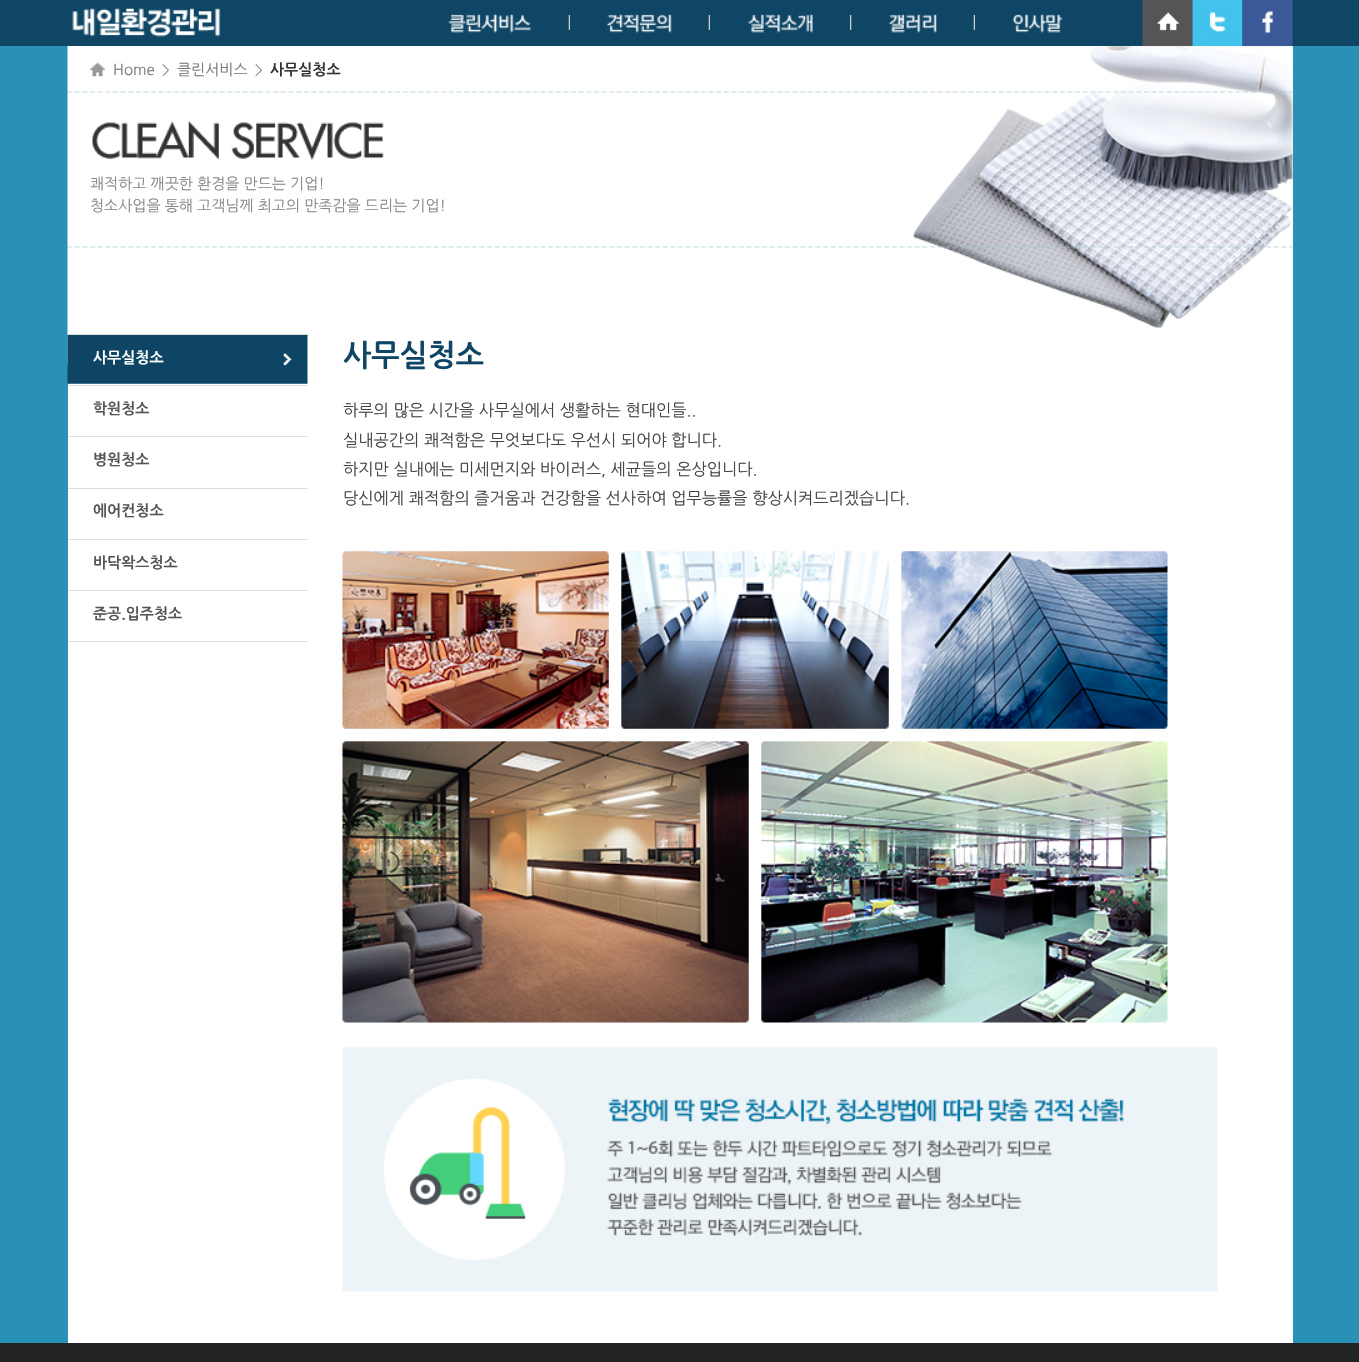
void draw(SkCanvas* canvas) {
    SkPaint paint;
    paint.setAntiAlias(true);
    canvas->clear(0xFF212324);
    paint.setColor(0xFF0F4665);
    canvas->drawRect(SkRect::MakeXYWH(0, 0, 1359, 46), paint);
    canvas->drawImageRect(SkImages::DeferredFromEncodedData(SkData::MakeFromFileName("img1.png")), SkRect::MakeXYWH(72, 8, 149, 29), SkSamplingOptions());
    canvas->drawImageRect(SkImages::DeferredFromEncodedData(SkData::MakeFromFileName("img2.png")), SkRect::MakeXYWH(448, 13, 84, 20), SkSamplingOptions());
    canvas->drawImageRect(SkImages::DeferredFromEncodedData(SkData::MakeFromFileName("img3.png")), SkRect::MakeXYWH(568, 15, 2, 15), SkSamplingOptions());
    canvas->drawImageRect(SkImages::DeferredFromEncodedData(SkData::MakeFromFileName("img4.png")), SkRect::MakeXYWH(607, 13, 65, 20), SkSamplingOptions());
    canvas->drawImageRect(SkImages::DeferredFromEncodedData(SkData::MakeFromFileName("img3.png")), SkRect::MakeXYWH(708, 15, 2, 15), SkSamplingOptions());
    canvas->drawImageRect(SkImages::DeferredFromEncodedData(SkData::MakeFromFileName("img5.png")), SkRect::MakeXYWH(747, 14, 66, 19), SkSamplingOptions());
    canvas->drawImageRect(SkImages::DeferredFromEncodedData(SkData::MakeFromFileName("img6.png")), SkRect::MakeXYWH(850, 15, 2, 15), SkSamplingOptions());
    canvas->drawImageRect(SkImages::DeferredFromEncodedData(SkData::MakeFromFileName("img7.png")), SkRect::MakeXYWH(888, 13, 49, 20), SkSamplingOptions());
    canvas->drawImageRect(SkImages::DeferredFromEncodedData(SkData::MakeFromFileName("img3.png")), SkRect::MakeXYWH(973, 15, 2, 15), SkSamplingOptions());
    canvas->drawImageRect(SkImages::DeferredFromEncodedData(SkData::MakeFromFileName("img8.png")), SkRect::MakeXYWH(1012, 13, 51, 20), SkSamplingOptions());
    paint.setColor(0xFF2991B8);
    canvas->drawRect(SkRect::MakeXYWH(0, 46, 1359, 1297), paint);
    paint.setColor(0xFFFFFFFF);
    canvas->drawRect(SkRect::MakeXYWH(68, 46, 1225, 1297), paint);
    canvas->drawImageRect(SkImages::DeferredFromEncodedData(SkData::MakeFromFileName("img9.png")), SkRect::MakeXYWH(1142, 0, 51, 47), SkSamplingOptions());
    canvas->drawImageRect(SkImages::DeferredFromEncodedData(SkData::MakeFromFileName("img10.png")), SkRect::MakeXYWH(1192, 0, 51, 47), SkSamplingOptions());
    canvas->drawImageRect(SkImages::DeferredFromEncodedData(SkData::MakeFromFileName("img11.png")), SkRect::MakeXYWH(1242, 0, 51, 47), SkSamplingOptions());
    canvas->drawImageRect(SkImages::DeferredFromEncodedData(SkData::MakeFromFileName("img12.png")), SkRect::MakeXYWH(67, 46, 1226, 319), SkSamplingOptions());
    canvas->drawImageRect(SkImages::DeferredFromEncodedData(SkData::MakeFromFileName("img13.png")), SkRect::MakeXYWH(90, 62, 15, 15), SkSamplingOptions());
    SkFont font1(fontMgr->matchFamilyStyle("NanumGothic", SkFontStyle::Normal()), 15);
    font1.setSubpixel(true);
    paint.setColor(0xFF767676);
    canvas->drawString("Home", 113, 75, font1, paint);
    SkFont font2(fontMgr->matchFamilyStyle("NanumGothic", SkFontStyle::Normal()), 14);
    font2.setSubpixel(true);
    paint.setColor(0xFF888888);
    canvas->drawString(">", 162, 75, font2, paint);
    paint.setColor(0xFF767676);
    canvas->drawString("클린서비스", 177, 75, font1, paint);
    paint.setColor(0xFF888888);
    canvas->drawString(">", 255, 75, font2, paint);
    SkFont font3(fontMgr->matchFamilyStyle("NanumGothic", SkFontStyle::Bold()), 15);
    font3.setSubpixel(true);
    paint.setColor(0xFF333333);
    canvas->drawString("사무실청소", 270, 75, font3, paint);
    canvas->drawImageRect(SkImages::DeferredFromEncodedData(SkData::MakeFromFileName("img14.png")), SkRect::MakeXYWH(92, 121, 292, 39), SkSamplingOptions());
    paint.setColor(0xFF888888);
    canvas->drawString("쾌적하고 깨끗한 환경을 만드는 기업!", 90, 189, font1, paint);
    canvas->drawString("청소사업을 통해 고객님께 최고의 만족감을 드리는 기업!", 90, 211, font1, paint);
    paint.setColor(0xFFDEDEDE);
    canvas->drawRect(SkRect::MakeXYWH(68, 334, 240, 1), paint);
    canvas->drawRect(SkRect::MakeXYWH(68, 385, 240, 1), paint);
    canvas->drawImageRect(SkImages::DeferredFromEncodedData(SkData::MakeFromFileName("img15.png")), SkRect::MakeXYWH(67, 335, 241, 49), SkSamplingOptions());
    paint.setColor(0xFFFFFFFF);
    canvas->drawString("사무실청소", 93, 363, font3, paint);
    paint.setColor(0xFFDEDEDE);
    canvas->drawRect(SkRect::MakeXYWH(68, 436, 240, 1), paint);
    paint.setColor(0xFF555555);
    canvas->drawString("학원청소", 93, 414, font3, paint);
    paint.setColor(0xFFDEDEDE);
    canvas->drawRect(SkRect::MakeXYWH(68, 488, 240, 1), paint);
    paint.setColor(0xFF555555);
    canvas->drawString("병원청소", 93, 465, font3, paint);
    paint.setColor(0xFFDEDEDE);
    canvas->drawRect(SkRect::MakeXYWH(68, 539, 240, 1), paint);
    paint.setColor(0xFF555555);
    canvas->drawString("에어컨청소", 93, 516, font3, paint);
    paint.setColor(0xFFDEDEDE);
    canvas->drawRect(SkRect::MakeXYWH(68, 590, 240, 1), paint);
    paint.setColor(0xFF555555);
    canvas->drawString("바닥왁스청소", 93, 568, font3, paint);
    paint.setColor(0xFFDEDEDE);
    canvas->drawRect(SkRect::MakeXYWH(68, 641, 240, 1), paint);
    paint.setColor(0xFF555555);
    canvas->drawString("준공.입주청소", 93, 619, font3, paint);
    SkFont font4(fontMgr->matchFamilyStyle("NanumGothic", SkFontStyle::Bold()), 30);
    font4.setSubpixel(true);
    paint.setColor(0xFF0F4665);
    canvas->drawString("사무실청소", 343, 366, font4, paint);
    SkFont font5(fontMgr->matchFamilyStyle("NanumGothic", SkFontStyle::Normal()), 16.25f);
    font5.setSubpixel(true);
    paint.setColor(0xFF444444);
    canvas->drawString("하루의 많은 시간을 사무실에서 생활하는 현대인들..", 343, 416, font5, paint);
    canvas->drawString("실내공간의 쾌적함은 무엇보다도 우선시 되어야 합니다.", 343, 446, font5, paint);
    canvas->drawString("하지만 실내에는 미세먼지와 바이러스, 세균들의 온상입니다.", 343, 475, font5, paint);
    canvas->drawString("당신에게 쾌적함의 즐거움과 건강함을 선사하여 업무능률을 향상시켜드리겠습니다.", 343, 504, font5, paint);
    canvas->drawImageRect(SkImages::DeferredFromEncodedData(SkData::MakeFromFileName("img16.png")), SkRect::MakeXYWH(342, 551, 826, 472), SkSamplingOptions());
    canvas->drawImageRect(SkImages::DeferredFromEncodedData(SkData::MakeFromFileName("img17.png")), SkRect::MakeXYWH(342, 1047, 876, 245), SkSamplingOptions());
}
